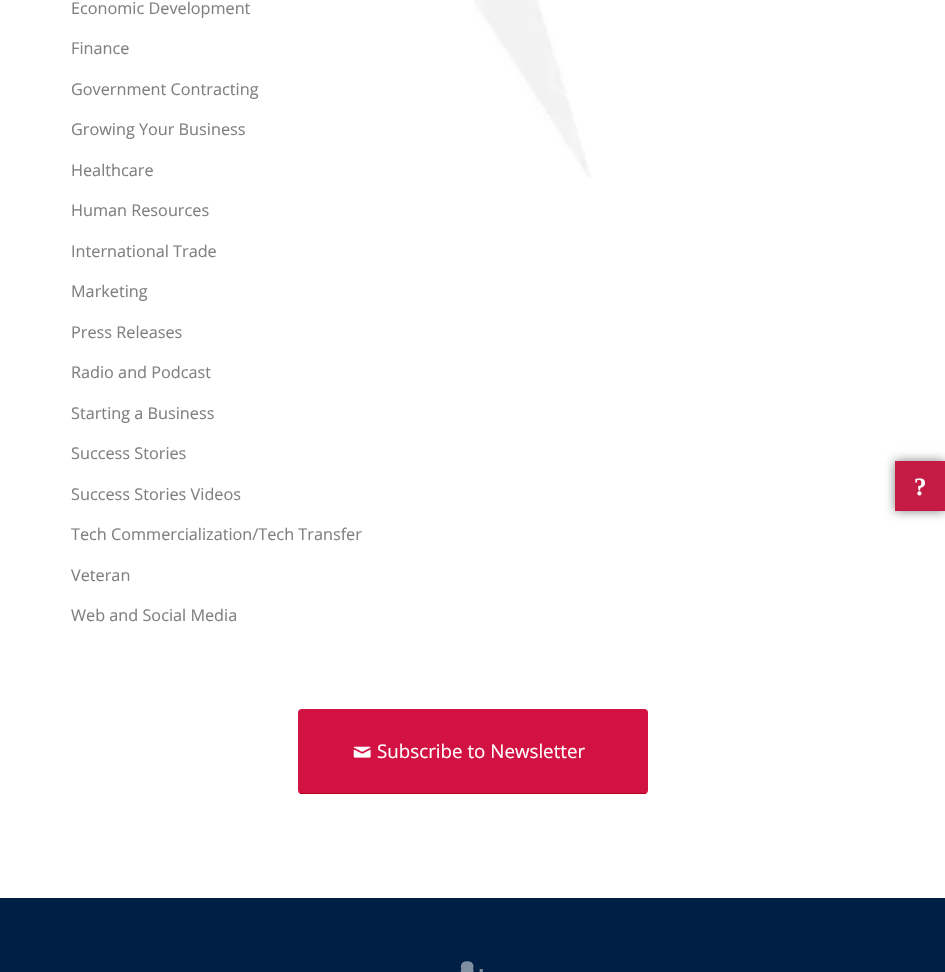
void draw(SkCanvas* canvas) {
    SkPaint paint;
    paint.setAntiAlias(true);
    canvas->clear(0xFFFFFFFF);
    canvas->drawImageRect(SkImages::DeferredFromEncodedData(SkData::MakeFromFileName("img1.png")), SkRect::MakeXYWH(473, 0, 119, 178), SkSamplingOptions());
    SkFont font1(fontMgr->matchFamilyStyle("Open Sans", SkFontStyle::Normal()), 16.25f);
    font1.setSubpixel(true);
    paint.setColor(0xFF808080);
    canvas->drawString("Economic Development", 71, 14, font1, paint);
    canvas->drawString("Finance", 71, 54, font1, paint);
    canvas->drawString("Government Contracting", 71, 95, font1, paint);
    canvas->drawString("Growing Your Business", 71, 135, font1, paint);
    canvas->drawString("Healthcare", 71, 176, font1, paint);
    canvas->drawString("Human Resources", 71, 216, font1, paint);
    canvas->drawString("International Trade", 71, 257, font1, paint);
    canvas->drawString("Marketing", 71, 297, font1, paint);
    canvas->drawString("Press Releases", 71, 338, font1, paint);
    canvas->drawString("Radio and Podcast", 71, 378, font1, paint);
    canvas->drawString("Starting a Business", 71, 419, font1, paint);
    canvas->drawString("Success Stories", 71, 459, font1, paint);
    canvas->drawString("Success Stories Videos", 71, 500, font1, paint);
    canvas->drawString("Tech Commercialization/Tech Transfer", 71, 540, font1, paint);
    canvas->drawString("Veteran", 71, 581, font1, paint);
    canvas->drawString("Web and Social Media", 71, 621, font1, paint);
    paint.setColor(0xFFD11242);
    canvas->drawRoundRect(SkRect::MakeXYWH(298, 709, 350, 85), 4, 4, paint);
    paint.setColor(0xFFB00020);
    canvas->drawRect(SkRect::MakeXYWH(300, 793, 346, 1), paint);
    canvas->drawImageRect(SkImages::DeferredFromEncodedData(SkData::MakeFromFileName("img2.png")), SkRect::MakeXYWH(353, 746, 18, 12), SkSamplingOptions());
    SkFont font2(fontMgr->matchFamilyStyle("Open Sans", SkFontStyle::Normal()), 18.75f);
    font2.setSubpixel(true);
    paint.setColor(0xFFFFFFFF);
    canvas->drawString("Subscribe to Newsletter", 377, 758, font2, paint);
    paint.setColor(0xFF001F45);
    canvas->drawRect(SkRect::MakeXYWH(0, 898, 945, 74), paint);
    canvas->drawImageRect(SkImages::DeferredFromEncodedData(SkData::MakeFromFileName("img3.png")), SkRect::MakeXYWH(460, 961, 23, 11), SkSamplingOptions());
    paint.setColor(0x80000000);
    paint.setMaskFilter(SkMaskFilter::MakeBlur(kNormal_SkBlurStyle, 5));
    canvas->drawRect(SkRect::MakeXYWH(895, 461, 50, 50), paint);
    paint.setMaskFilter(nullptr);
    paint.setColor(0xFFC51C45);
    canvas->drawRect(SkRect::MakeXYWH(895, 461, 50, 50), paint);
    SkFont font3(fontMgr->matchFamilyStyle("Liberation Serif", SkFontStyle::Bold()), 25);
    font3.setSubpixel(true);
    paint.setColor(0xFFFFFFFF);
    canvas->drawString("?", 914, 495, font3, paint);
}
